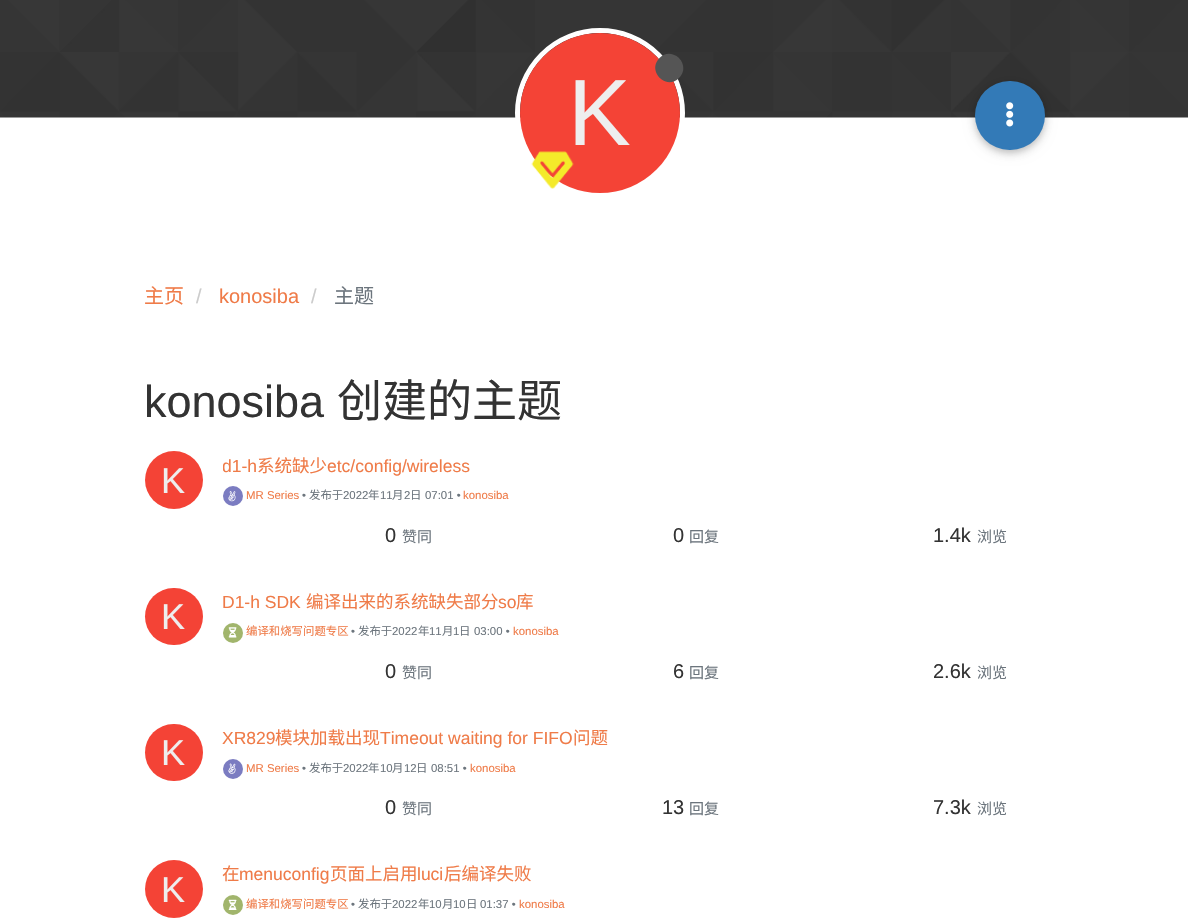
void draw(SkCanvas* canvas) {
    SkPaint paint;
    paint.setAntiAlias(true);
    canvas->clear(0xFFFFFFFF);
    canvas->drawImageRect(SkImages::DeferredFromEncodedData(SkData::MakeFromFileName("img1.png")), SkRect::MakeXYWH(0, 0, 1188, 118), SkSamplingOptions());
    paint.setStyle(SkPaint::kStroke_Style);
    paint.setStrokeWidth(5);
    paint.setColor(0xFFFFFFFF);
    canvas->drawCircle(600, 113, 82.5f, paint);
    paint.setStyle(SkPaint::kFill_Style);
    paint.setColor(0xFFF44336);
    canvas->drawCircle(600, 113, 80, paint);
    paint.setColor(0xFF555555);
    canvas->drawPath(SkPathBuilder().moveTo(659.5f, 58).cubicTo(672.5f, 45, 692, 65, 679, 78).cubicTo(666, 91, 646.5f, 71, 659.5f, 58).close().detach(), paint);
    SkFont font1(fontMgr->matchFamilyStyle("Liberation Sans", SkFontStyle::Normal()), 94);
    font1.setSubpixel(true);
    paint.setColor(0xFFEEEEEE);
    canvas->drawString("K", 568, 145, font1, paint);
    canvas->drawImageRect(SkImages::DeferredFromEncodedData(SkData::MakeFromFileName("img2.png")), SkRect::MakeXYWH(531, 151, 43, 38), SkSamplingOptions());
    paint.setColor(0x1F000000);
    paint.setMaskFilter(SkMaskFilter::MakeBlur(kNormal_SkBlurStyle, 6));
    canvas->drawRoundRect(SkRect::MakeXYWH(975, 84, 70, 69), 34.5f, 34.5f, paint);
    paint.setMaskFilter(nullptr);
    paint.setColor(0x29000000);
    paint.setMaskFilter(SkMaskFilter::MakeBlur(kNormal_SkBlurStyle, 3));
    canvas->drawRoundRect(SkRect::MakeXYWH(975, 84, 70, 69), 34.5f, 34.5f, paint);
    paint.setMaskFilter(nullptr);
    paint.setColor(0xFF337AB7);
    canvas->drawRoundRect(SkRect::MakeXYWH(975, 81, 70, 69), 34.5f, 34.5f, paint);
    canvas->drawImageRect(SkImages::DeferredFromEncodedData(SkData::MakeFromFileName("img3.png")), SkRect::MakeXYWH(1006, 102, 8, 25), SkSamplingOptions());
    SkFont font2(fontMgr->matchFamilyStyle("Noto Sans CJK SC", SkFontStyle::Normal()), 20);
    font2.setSubpixel(true);
    paint.setColor(0xFFEF7B48);
    canvas->drawString("主页", 144, 303, font2, paint);
    SkFont font3(fontMgr->matchFamilyStyle("Liberation Sans", SkFontStyle::Normal()), 20);
    font3.setSubpixel(true);
    paint.setColor(0xFFCCCCCC);
    canvas->drawString("/", 196, 303, font3, paint);
    paint.setColor(0xFFEF7B48);
    canvas->drawString("konosiba", 219, 303, font3, paint);
    paint.setColor(0xFFCCCCCC);
    canvas->drawString("/", 311, 303, font3, paint);
    paint.setColor(0xFF6C757D);
    canvas->drawString("主题", 334, 303, font2, paint);
    SkFont font4(fontMgr->matchFamilyStyle("Liberation Sans", SkFontStyle::Normal()), 45);
    font4.setSubpixel(true);
    paint.setColor(0xFF333333);
    canvas->drawString("konosiba", 144, 417, font4, paint);
    SkFont font5(fontMgr->matchFamilyStyle("Noto Sans CJK SC", SkFontStyle::Normal()), 45);
    font5.setSubpixel(true);
    canvas->drawString("创建的主题", 337, 417, font5, paint);
    paint.setColor(0xFFF44336);
    canvas->drawCircle(174, 480, 29, paint);
    SkFont font6(fontMgr->matchFamilyStyle("Liberation Sans", SkFontStyle::Normal()), 36);
    font6.setSubpixel(true);
    paint.setColor(0xFFEEEEEE);
    canvas->drawString("K", 161, 493, font6, paint);
    canvas->save();
    canvas->clipRect(SkRect::MakeXYWH(223, 451, 822, 55));
    SkFont font7(fontMgr->matchFamilyStyle("Liberation Sans", SkFontStyle::Normal()), 17.5f);
    font7.setSubpixel(true);
    paint.setColor(0xFFEF7B48);
    canvas->drawString("d1-h", 222, 472, font7, paint);
    canvas->restore();
    SkFont font8(fontMgr->matchFamilyStyle("Noto Sans CJK SC", SkFontStyle::Normal()), 17.5f);
    font8.setSubpixel(true);
    canvas->drawString("系统缺少", 257, 472, font8, paint);
    canvas->drawString("etc/config/wireless", 327, 472, font7, paint);
    paint.setColor(0xFF7B7CC1);
    canvas->drawCircle(233, 496, 10, paint);
    canvas->drawImageRect(SkImages::DeferredFromEncodedData(SkData::MakeFromFileName("img4.png")), SkRect::MakeXYWH(228, 491, 8, 11), SkSamplingOptions());
    SkFont font9(fontMgr->matchFamilyStyle("Liberation Sans", SkFontStyle::Normal()), 11.4f);
    font9.setSubpixel(true);
    paint.setColor(0xFFEF7B48);
    canvas->drawString("MR Series", 246, 499, font9, paint);
    paint.setColor(0xFF6C757D);
    canvas->drawString("•", 302, 499, font9, paint);
    SkFont font10(fontMgr->matchFamilyStyle("Noto Sans CJK SC", SkFontStyle::Normal()), 11.4f);
    font10.setSubpixel(true);
    canvas->drawString("发布于", 309, 499, font10, paint);
    canvas->drawString("2022", 343, 499, font9, paint);
    canvas->drawString("年", 368, 499, font10, paint);
    canvas->drawString("11", 380, 499, font9, paint);
    canvas->drawString("月", 392, 499, font10, paint);
    canvas->drawString("2", 404, 499, font9, paint);
    canvas->drawString("日", 410, 499, font10, paint);
    canvas->drawString("07:01 •", 425, 499, font9, paint);
    paint.setColor(0xFFEF7B48);
    canvas->drawString("konosiba", 463, 499, font9, paint);
    paint.setColor(0xFF333333);
    canvas->drawString("0", 385, 542, font3, paint);
    SkFont font11(fontMgr->matchFamilyStyle("Noto Sans CJK SC", SkFontStyle::Normal()), 15);
    font11.setSubpixel(true);
    paint.setColor(0xFF6C757D);
    canvas->drawString("赞同", 402, 542, font11, paint);
    paint.setColor(0xFF333333);
    canvas->drawString("0", 673, 542, font3, paint);
    paint.setColor(0xFF6C757D);
    canvas->drawString("回复", 689, 542, font11, paint);
    paint.setColor(0xFF333333);
    canvas->drawString("1.4k", 933, 542, font3, paint);
    paint.setColor(0xFF6C757D);
    canvas->drawString("浏览", 977, 542, font11, paint);
    paint.setColor(0xFFF44336);
    canvas->drawRoundRect(SkRect::MakeXYWH(145, 588, 58, 57), 28.5f, 28.5f, paint);
    paint.setColor(0xFFEEEEEE);
    canvas->drawString("K", 161, 629, font6, paint);
    paint.setColor(0xFFEF7B48);
    canvas->drawString("D1-h SDK", 222, 608, font7, paint);
    canvas->drawString("编译出来的系统缺失部分", 306, 608, font8, paint);
    canvas->drawString("so", 498, 608, font7, paint);
    canvas->drawString("库", 516, 608, font8, paint);
    paint.setColor(0xFFA1B56C);
    canvas->drawCircle(233, 633, 10, paint);
    canvas->drawImageRect(SkImages::DeferredFromEncodedData(SkData::MakeFromFileName("img5.png")), SkRect::MakeXYWH(228, 627, 9, 11), SkSamplingOptions());
    paint.setColor(0xFFEF7B48);
    canvas->drawString("编译和烧写问题专区", 246, 635, font10, paint);
    paint.setColor(0xFF6C757D);
    canvas->drawString("•", 351, 635, font9, paint);
    canvas->drawString("发布于", 358, 635, font10, paint);
    canvas->drawString("2022", 392, 635, font9, paint);
    canvas->drawString("年", 418, 635, font10, paint);
    canvas->drawString("11", 429, 635, font9, paint);
    canvas->drawString("月", 442, 635, font10, paint);
    canvas->drawString("1", 453, 635, font9, paint);
    canvas->drawString("日", 459, 635, font10, paint);
    canvas->drawString("03:00 •", 474, 635, font9, paint);
    paint.setColor(0xFFEF7B48);
    canvas->drawString("konosiba", 513, 635, font9, paint);
    paint.setColor(0xFF333333);
    canvas->drawString("0", 385, 678, font3, paint);
    paint.setColor(0xFF6C757D);
    canvas->drawString("赞同", 402, 678, font11, paint);
    paint.setColor(0xFF333333);
    canvas->drawString("6", 673, 678, font3, paint);
    paint.setColor(0xFF6C757D);
    canvas->drawString("回复", 689, 678, font11, paint);
    paint.setColor(0xFF333333);
    canvas->drawString("2.6k", 933, 678, font3, paint);
    paint.setColor(0xFF6C757D);
    canvas->drawString("浏览", 977, 678, font11, paint);
    paint.setColor(0xFFF44336);
    canvas->drawRoundRect(SkRect::MakeXYWH(145, 724, 58, 57), 28.5f, 28.5f, paint);
    paint.setColor(0xFFEEEEEE);
    canvas->drawString("K", 161, 765, font6, paint);
    paint.setColor(0xFFEF7B48);
    canvas->drawString("XR829", 222, 744, font7, paint);
    canvas->drawString("模块加载出现", 275, 744, font8, paint);
    canvas->drawString("Timeout waiting for FIFO", 380, 744, font7, paint);
    canvas->drawString("问题", 573, 744, font8, paint);
    paint.setColor(0xFF7B7CC1);
    canvas->drawCircle(233, 769, 10, paint);
    canvas->drawImageRect(SkImages::DeferredFromEncodedData(SkData::MakeFromFileName("img6.png")), SkRect::MakeXYWH(228, 763, 8, 11), SkSamplingOptions());
    paint.setColor(0xFFEF7B48);
    canvas->drawString("MR Series", 246, 772, font9, paint);
    paint.setColor(0xFF6C757D);
    canvas->drawString("•", 302, 772, font9, paint);
    canvas->drawString("发布于", 309, 772, font10, paint);
    canvas->drawString("2022", 343, 772, font9, paint);
    canvas->drawString("年", 368, 772, font10, paint);
    canvas->drawString("10", 380, 772, font9, paint);
    canvas->drawString("月", 392, 772, font10, paint);
    canvas->drawString("12", 404, 772, font9, paint);
    canvas->drawString("日", 416, 772, font10, paint);
    canvas->drawString("08:51 •", 431, 772, font9, paint);
    paint.setColor(0xFFEF7B48);
    canvas->drawString("konosiba", 470, 772, font9, paint);
    paint.setColor(0xFF333333);
    canvas->drawString("0", 385, 814, font3, paint);
    paint.setColor(0xFF6C757D);
    canvas->drawString("赞同", 402, 814, font11, paint);
    paint.setColor(0xFF333333);
    canvas->drawString("13", 662, 814, font3, paint);
    paint.setColor(0xFF6C757D);
    canvas->drawString("回复", 689, 814, font11, paint);
    paint.setColor(0xFF333333);
    canvas->drawString("7.3k", 933, 814, font3, paint);
    paint.setColor(0xFF6C757D);
    canvas->drawString("浏览", 977, 814, font11, paint);
    paint.setColor(0xFFF44336);
    canvas->drawCircle(174, 889, 29, paint);
    paint.setColor(0xFFEEEEEE);
    canvas->drawString("K", 161, 902, font6, paint);
    paint.setColor(0xFFEF7B48);
    canvas->drawString("在", 222, 880, font8, paint);
    canvas->drawString("menuconfig", 239, 880, font7, paint);
    canvas->drawString("页面上启用", 330, 880, font8, paint);
    canvas->drawString("luci", 417, 880, font7, paint);
    canvas->drawString("后编译失败", 444, 880, font8, paint);
    paint.setColor(0xFFA1B56C);
    canvas->drawCircle(233, 905, 10, paint);
    canvas->drawImageRect(SkImages::DeferredFromEncodedData(SkData::MakeFromFileName("img7.png")), SkRect::MakeXYWH(228, 899, 9, 11), SkSamplingOptions());
    paint.setColor(0xFFEF7B48);
    canvas->drawString("编译和烧写问题专区", 246, 908, font10, paint);
    paint.setColor(0xFF6C757D);
    canvas->drawString("•", 351, 908, font9, paint);
    canvas->drawString("发布于", 358, 908, font10, paint);
    canvas->drawString("2022", 392, 908, font9, paint);
    canvas->drawString("年", 418, 908, font10, paint);
    canvas->drawString("10", 429, 908, font9, paint);
    canvas->drawString("月", 442, 908, font10, paint);
    canvas->drawString("10", 453, 908, font9, paint);
    canvas->drawString("日", 466, 908, font10, paint);
    canvas->drawString("01:37 •", 480, 908, font9, paint);
    paint.setColor(0xFFEF7B48);
    canvas->drawString("konosiba", 519, 908, font9, paint);
}
